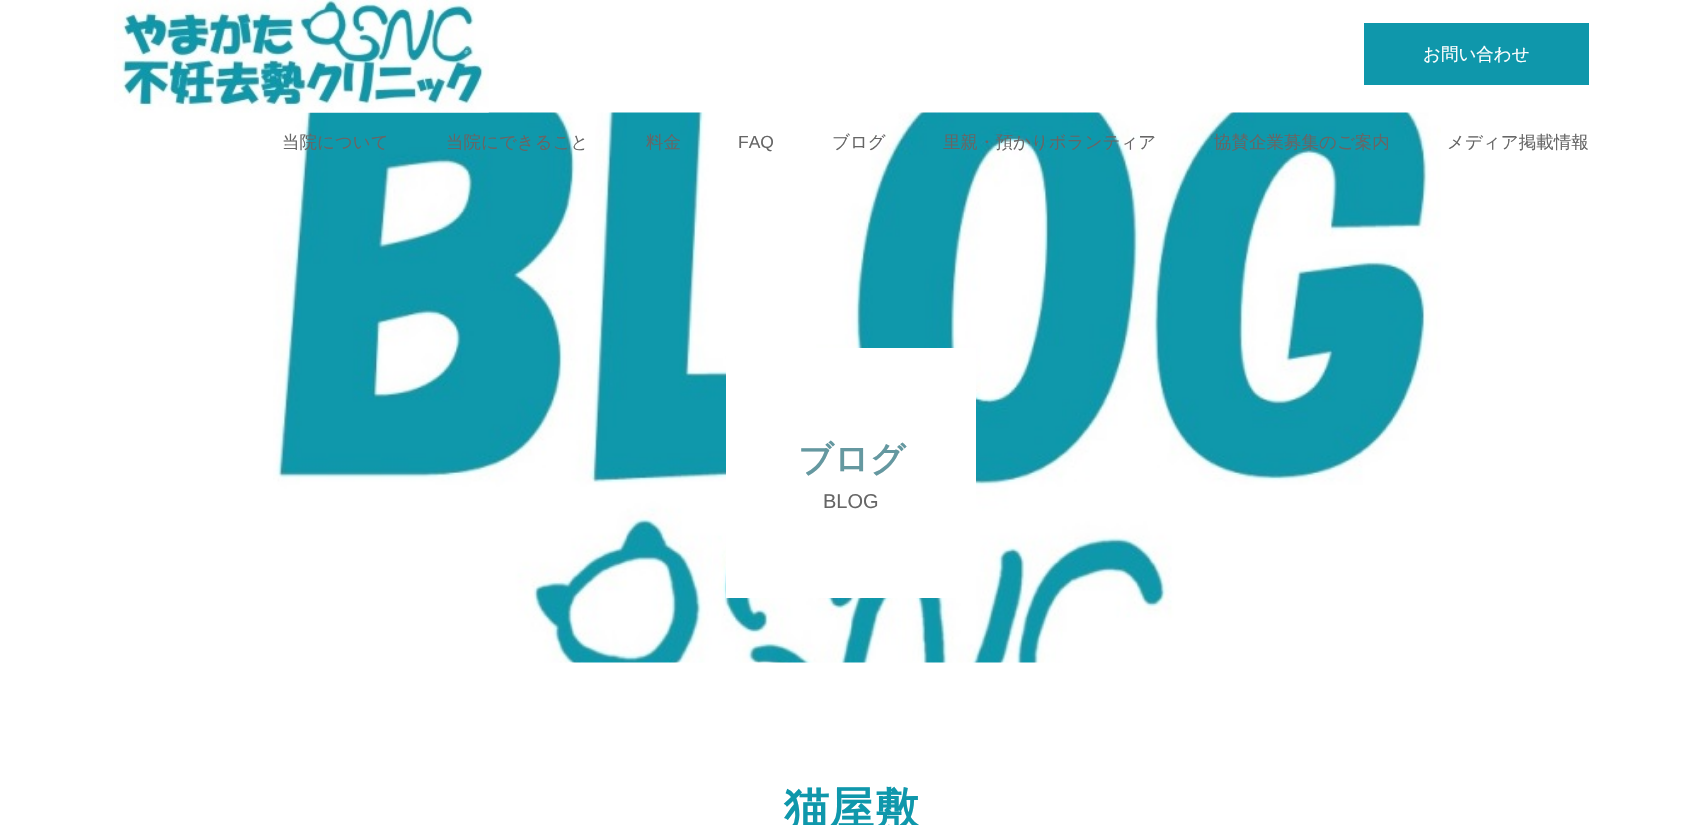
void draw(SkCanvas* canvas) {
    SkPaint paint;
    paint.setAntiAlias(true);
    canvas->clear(0xFFFFFFFF);
    canvas->drawImageRect(SkImages::DeferredFromEncodedData(SkData::MakeFromFileName("img2.png")), SkRect::MakeXYWH(273, 112, 1168, 551), SkSamplingOptions());
    canvas->drawImageRect(SkImages::DeferredFromEncodedData(SkData::MakeFromFileName("img1.png")), SkRect::MakeXYWH(114, 0, 375, 113), SkSamplingOptions());
    paint.setColor(0xFF0F97AB);
    canvas->drawRect(SkRect::MakeXYWH(1364, 23, 225, 62), paint);
    SkFont font1(fontMgr->matchFamilyStyle("WenQuanYi Zen Hei", SkFontStyle(500, SkFontStyle::kNormal_Width, SkFontStyle::kUpright_Slant)), 17.5f);
    font1.setSubpixel(true);
    paint.setColor(0xFFFFFFFF);
    canvas->drawString("お問い合わせ", 1423, 60, font1, paint);
    paint.setColor(0xFF666666);
    canvas->drawString("当院について", 282, 148, font1, paint);
    canvas->drawString("当院にできること", 446, 148, font1, paint);
    canvas->drawString("料金", 646, 148, font1, paint);
    SkFont font2(fontMgr->matchFamilyStyle("Liberation Sans", SkFontStyle::Normal()), 17.5f);
    font2.setSubpixel(true);
    canvas->drawString("FAQ", 738, 148, font2, paint);
    canvas->drawString("ブログ", 832, 148, font1, paint);
    canvas->drawString("里親・預かりボランティア", 943, 148, font1, paint);
    canvas->drawString("協賛企業募集のご案内", 1214, 148, font1, paint);
    canvas->drawString("メディア掲載情報", 1447, 148, font1, paint);
    paint.setColor(0xFFFFFFFF);
    canvas->drawRect(SkRect::MakeXYWH(726, 348, 250, 250), paint);
    SkFont font3(fontMgr->matchFamilyStyle("WenQuanYi Zen Hei", SkFontStyle::Bold()), 35);
    font3.setSubpixel(true);
    paint.setColor(0xFF6598A0);
    canvas->drawString("ブログ", 798, 471, font3, paint);
    SkFont font4(fontMgr->matchFamilyStyle("Liberation Sans", SkFontStyle::Normal()), 20);
    font4.setSubpixel(true);
    paint.setColor(0xFF666666);
    canvas->drawString("BLOG", 823, 508, font4, paint);
    SkFont font5(fontMgr->matchFamilyStyle("WenQuanYi Zen Hei", SkFontStyle::Bold()), 45);
    font5.setSubpixel(true);
    paint.setColor(0xFF0F97AB);
    canvas->drawString("猫屋敷", 784, 824, font5, paint);
}
